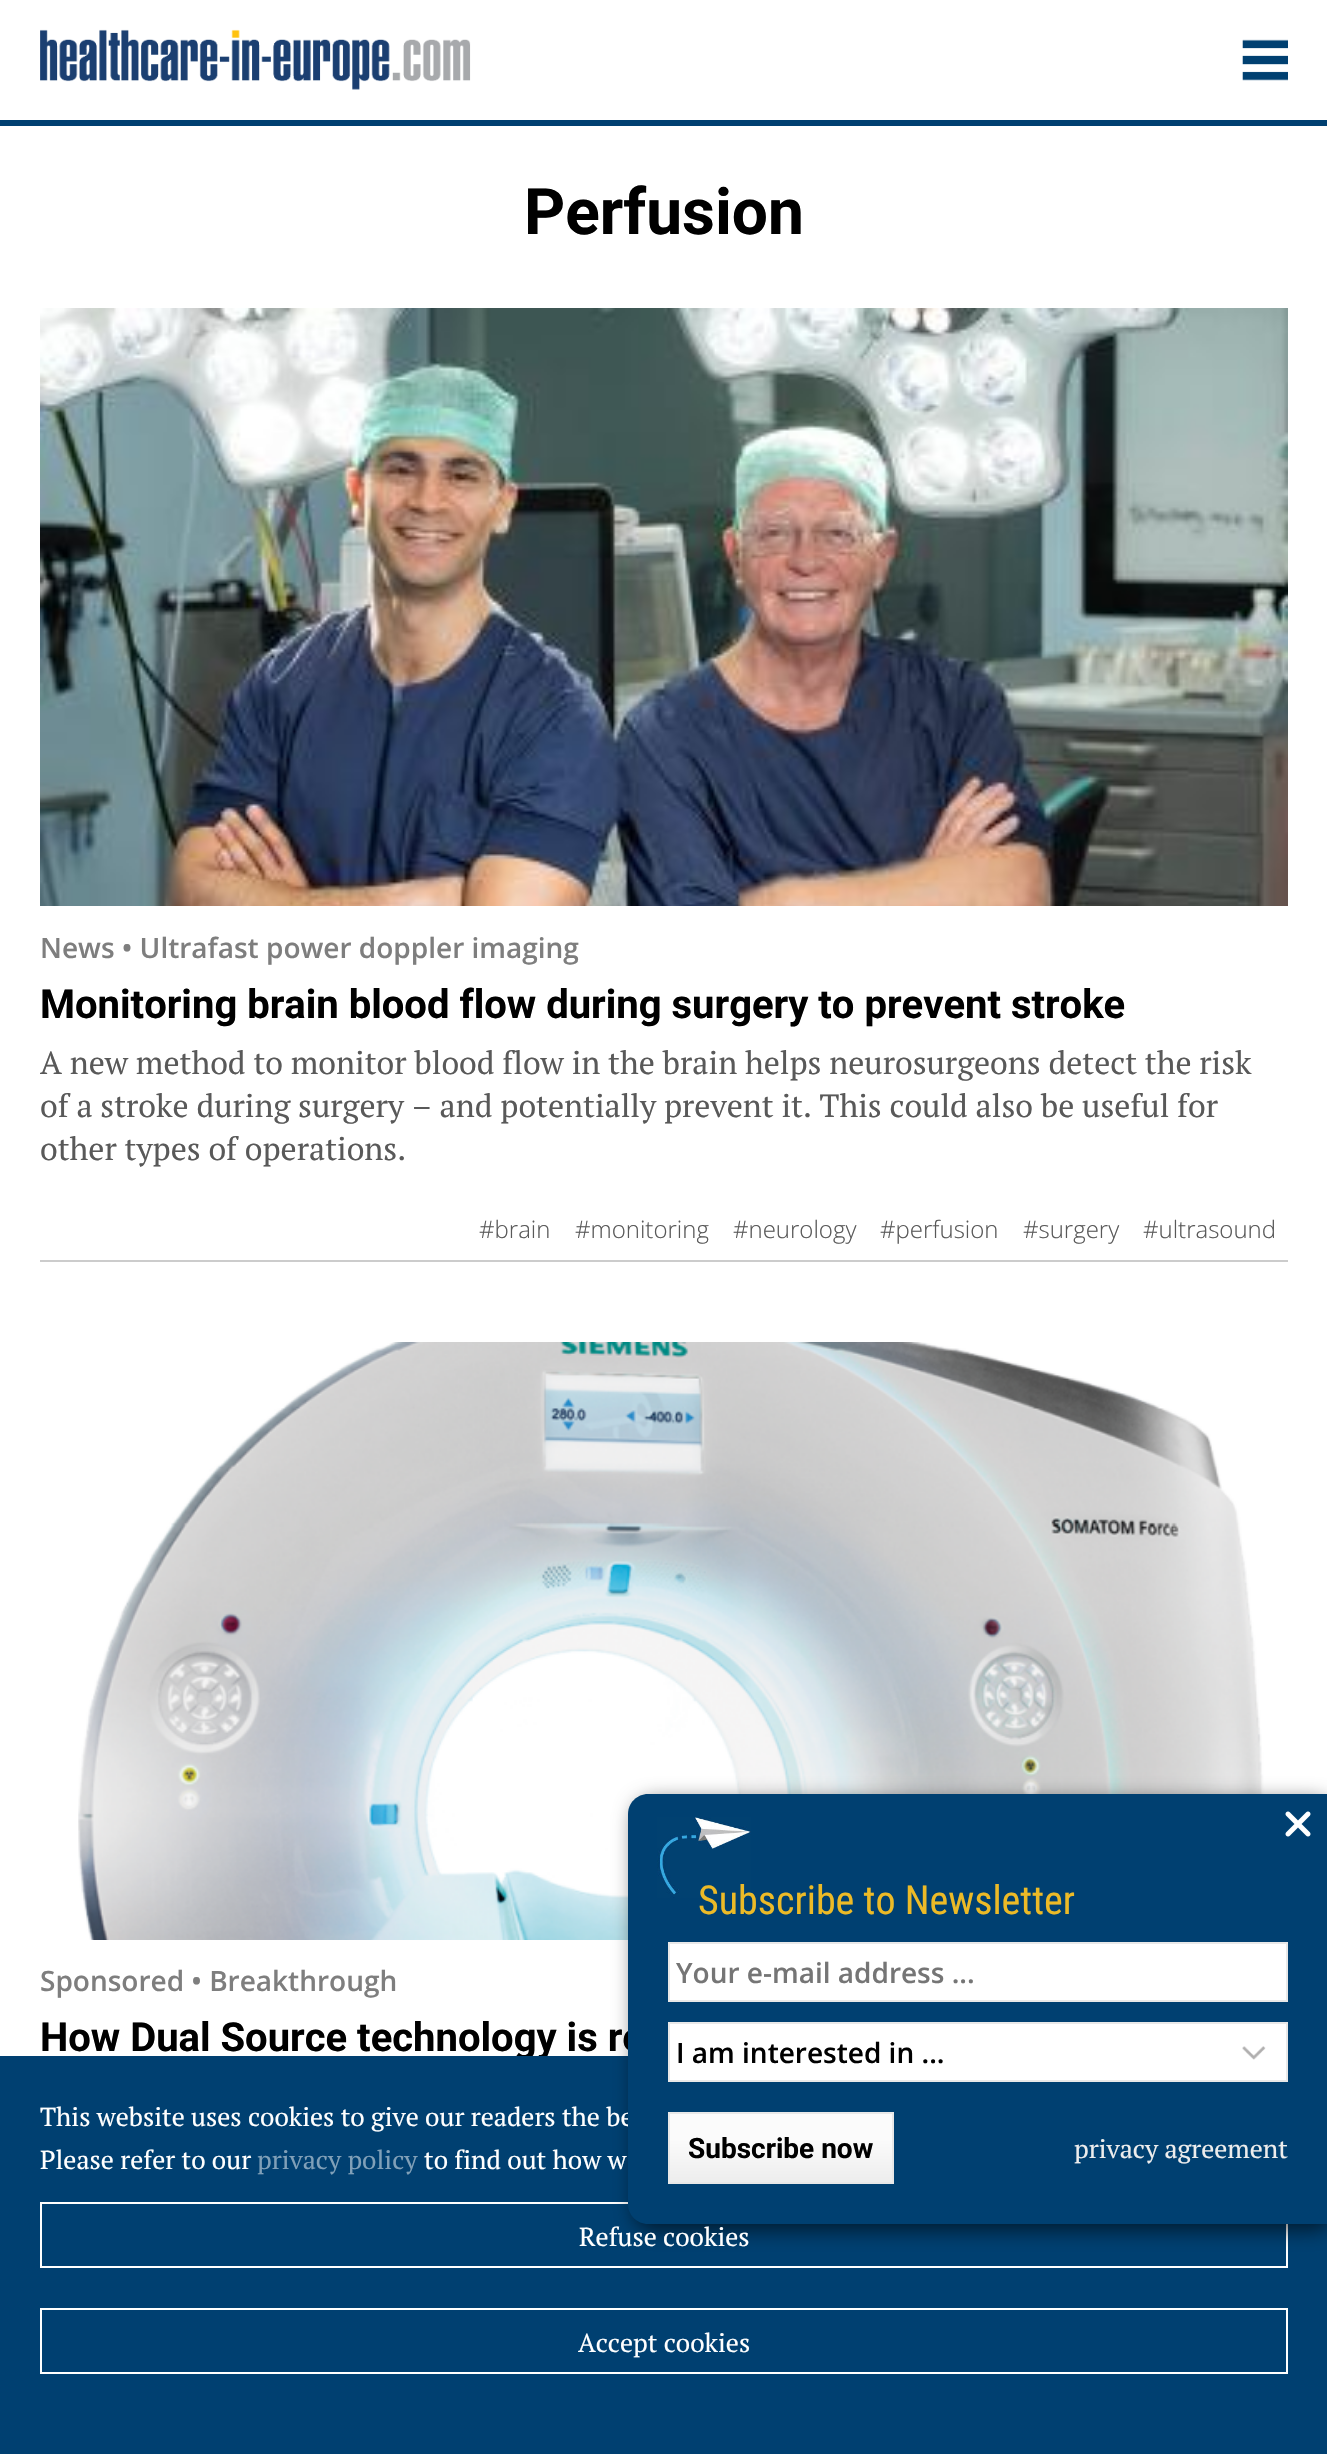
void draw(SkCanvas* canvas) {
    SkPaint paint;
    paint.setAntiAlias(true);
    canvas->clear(0xFFFFFFFF);
    paint.setColor(0xFF004071);
    canvas->drawRect(SkRect::MakeXYWH(0, 120, 1327, 6), paint);
    canvas->drawImageRect(SkImages::DeferredFromEncodedData(SkData::MakeFromFileName("img1.png")), SkRect::MakeXYWH(40, 29, 431, 61), SkSamplingOptions());
    canvas->drawImageRect(SkImages::DeferredFromEncodedData(SkData::MakeFromFileName("img2.png")), SkRect::MakeXYWH(1242, 39, 46, 42), SkSamplingOptions());
    SkFont font1(fontMgr->matchFamilyStyle("Roboto", SkFontStyle::Bold()), 64);
    font1.setSubpixel(true);
    paint.setColor(0xFF000000);
    canvas->drawString("Perfusion", 524, 234, font1, paint);
    canvas->drawImageRect(SkImages::DeferredFromEncodedData(SkData::MakeFromFileName("img3.png")), SkRect::MakeXYWH(40, 308, 1248, 598), SkSamplingOptions());
    SkFont font2(fontMgr->matchFamilyStyle("Open Sans", SkFontStyle(600, SkFontStyle::kNormal_Width, SkFontStyle::kUpright_Slant)), 28);
    font2.setSubpixel(true);
    paint.setColor(0xFF7E7E7E);
    canvas->drawString("News • Ultrafast power doppler imaging", 40, 958, font2, paint);
    SkFont font3(fontMgr->matchFamilyStyle("Roboto", SkFontStyle::Bold()), 40);
    font3.setSubpixel(true);
    paint.setColor(0xFF000000);
    canvas->drawString("Monitoring brain blood flow during surgery to prevent stroke", 40, 1018, font3, paint);
    SkFont font4(fontMgr->matchFamilyStyle("PT Serif", SkFontStyle::Normal()), 32);
    font4.setSubpixel(true);
    paint.setColor(0xFF595959);
    canvas->drawString("A new method to monitor blood flow in the brain helps neurosurgeons detect the risk", 40, 1074, font4, paint);
    canvas->drawString("of a stroke during surgery – and potentially prevent it. This could also be useful for", 40, 1117, font4, paint);
    canvas->drawString("other types of operations.", 40, 1160, font4, paint);
    paint.setColor(0xFFCCCCCC);
    canvas->drawRect(SkRect::MakeXYWH(40, 1260, 1248, 2), paint);
    SkFont font5(fontMgr->matchFamilyStyle("Open Sans", SkFontStyle(300, SkFontStyle::kNormal_Width, SkFontStyle::kUpright_Slant)), 24);
    font5.setSubpixel(true);
    paint.setColor(0xFF595959);
    canvas->drawString("#brain", 479, 1238, font5, paint);
    canvas->drawString("#monitoring", 575, 1238, font5, paint);
    canvas->drawString("#neurology", 733, 1238, font5, paint);
    canvas->drawString("#perfusion", 880, 1238, font5, paint);
    canvas->drawString("#surgery", 1023, 1238, font5, paint);
    canvas->drawString("#ultrasound", 1143, 1238, font5, paint);
    canvas->drawImageRect(SkImages::DeferredFromEncodedData(SkData::MakeFromFileName("img4.png")), SkRect::MakeXYWH(78, 1342, 1187, 598), SkSamplingOptions());
    paint.setColor(0xFF7E7E7E);
    canvas->drawString("Sponsored • Breakthrough", 40, 1991, font2, paint);
    paint.setColor(0xFF000000);
    canvas->drawString("How Dual Source technology is re", 40, 2051, font3, paint);
    paint.setColor(0xFF004071);
    canvas->drawRect(SkRect::MakeXYWH(0, 2056, 1327, 398), paint);
    paint.setStyle(SkPaint::kStroke_Style);
    paint.setStrokeWidth(2);
    paint.setColor(0xFFFFFFFF);
    canvas->drawRect(SkRect::MakeXYWH(41, 2203, 1246, 64), paint);
    paint.setStyle(SkPaint::kFill_Style);
    paint.setColor(0x99000000);
    paint.setMaskFilter(SkMaskFilter::MakeBlur(kNormal_SkBlurStyle, 10));
    canvas->drawRoundRect(SkRect::MakeXYWH(634, 1800, 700, 430), 20, 20, paint);
    paint.setMaskFilter(nullptr);
    SkFont font6(fontMgr->matchFamilyStyle("PT Serif", SkFontStyle::Normal()), 26);
    font6.setSubpixel(true);
    paint.setColor(0xFFFFFFFF);
    canvas->drawString("This website uses cookies to give our readers the be", 40, 2126, font6, paint);
    paint.setColor(0xFF004071);
    canvas->drawPath(SkPathBuilder().moveTo(648, 1794).lineTo(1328, 1794).lineTo(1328, 2224).lineTo(648, 2224).cubicTo(637, 2224, 628, 2215, 628, 2204).lineTo(628, 1814).cubicTo(628, 1803, 637, 1794, 648, 1794).close().detach(), paint);
    canvas->drawImageRect(SkImages::DeferredFromEncodedData(SkData::MakeFromFileName("img5.png")), SkRect::MakeXYWH(1285, 1811, 26, 26), SkSamplingOptions());
    canvas->drawImageRect(SkImages::DeferredFromEncodedData(SkData::MakeFromFileName("img6.png")), SkRect::MakeXYWH(657, 1817, 94, 81), SkSamplingOptions());
    SkFont font7(fontMgr->matchFamilyStyle("Roboto Condensed", SkFontStyle::Normal()), 40);
    font7.setSubpixel(true);
    paint.setColor(0xFFECBA27);
    canvas->drawString("Subscribe to Newsletter", 698, 1914, font7, paint);
    paint.setColor(0xFFFFFFFF);
    canvas->drawRect(SkRect::MakeXYWH(669, 1943, 618, 58), paint);
    paint.setStyle(SkPaint::kStroke_Style);
    paint.setColor(0xFFE8E8E8);
    canvas->drawRect(SkRect::MakeXYWH(669, 1943, 618, 58), paint);
    paint.setStyle(SkPaint::kFill_Style);
    paint.setColor(0xFF757575);
    canvas->drawString("Your e-mail address ...", 676, 1983, font2, paint);
    paint.setColor(0xFFFFFFFF);
    canvas->drawRect(SkRect::MakeXYWH(670, 2024, 616, 56), paint);
    canvas->drawImageRect(SkImages::DeferredFromEncodedData(SkData::MakeFromFileName("img7.png")), SkRect::MakeXYWH(1242, 2046, 24, 14), SkSamplingOptions());
    paint.setStyle(SkPaint::kStroke_Style);
    paint.setColor(0xFFE8E8E8);
    canvas->drawRect(SkRect::MakeXYWH(669, 2023, 618, 58), paint);
    paint.setStyle(SkPaint::kFill_Style);
    paint.setColor(0xFF000000);
    canvas->drawString("I am interested in ...", 676, 2063, font2, paint);
    {
        const SkColor colors[] = {0xFFFBFBFB, 0xFFEDEDED};
        const float stops[] = {0.38f, 1};
        const SkPoint ends[] = {{781, 2114}, {781, 2182}};
        paint.setShader(SkGradientShader::MakeLinear(ends, colors, stops, 2, SkTileMode::kClamp));
        paint.setAlpha(255);
    }
    canvas->drawRect(SkRect::MakeXYWH(670, 2114, 222, 68), paint);
    paint.setStyle(SkPaint::kStroke_Style);
    paint.setShader(nullptr);
    paint.setColor(0xFFE8E8E8);
    canvas->drawRect(SkRect::MakeXYWH(669, 2113, 224, 70), paint);
    SkFont font8(fontMgr->matchFamilyStyle("Roboto", SkFontStyle::Bold()), 28);
    font8.setSubpixel(true);
    paint.setStyle(SkPaint::kFill_Style);
    paint.setColor(0xFF000000);
    canvas->drawString("Subscribe now", 688, 2158, font8, paint);
    paint.setColor(0xFFEDEDED);
    canvas->drawString("privacy agreement", 1074, 2158, font6, paint);
    paint.setColor(0xFFFFFFFF);
    canvas->drawString("Please refer to our", 40, 2169, font6, paint);
    paint.setColor(0xFF80A0B8);
    canvas->drawString("privacy policy", 257, 2169, font6, paint);
    paint.setColor(0xFFFFFFFF);
    canvas->drawString("to find out how w", 424, 2169, font6, paint);
    canvas->drawString("Refuse cookies", 579, 2246, font6, paint);
    paint.setStyle(SkPaint::kStroke_Style);
    canvas->drawRect(SkRect::MakeXYWH(41, 2309, 1246, 64), paint);
    paint.setStyle(SkPaint::kFill_Style);
    canvas->drawString("Accept cookies", 578, 2352, font6, paint);
}
